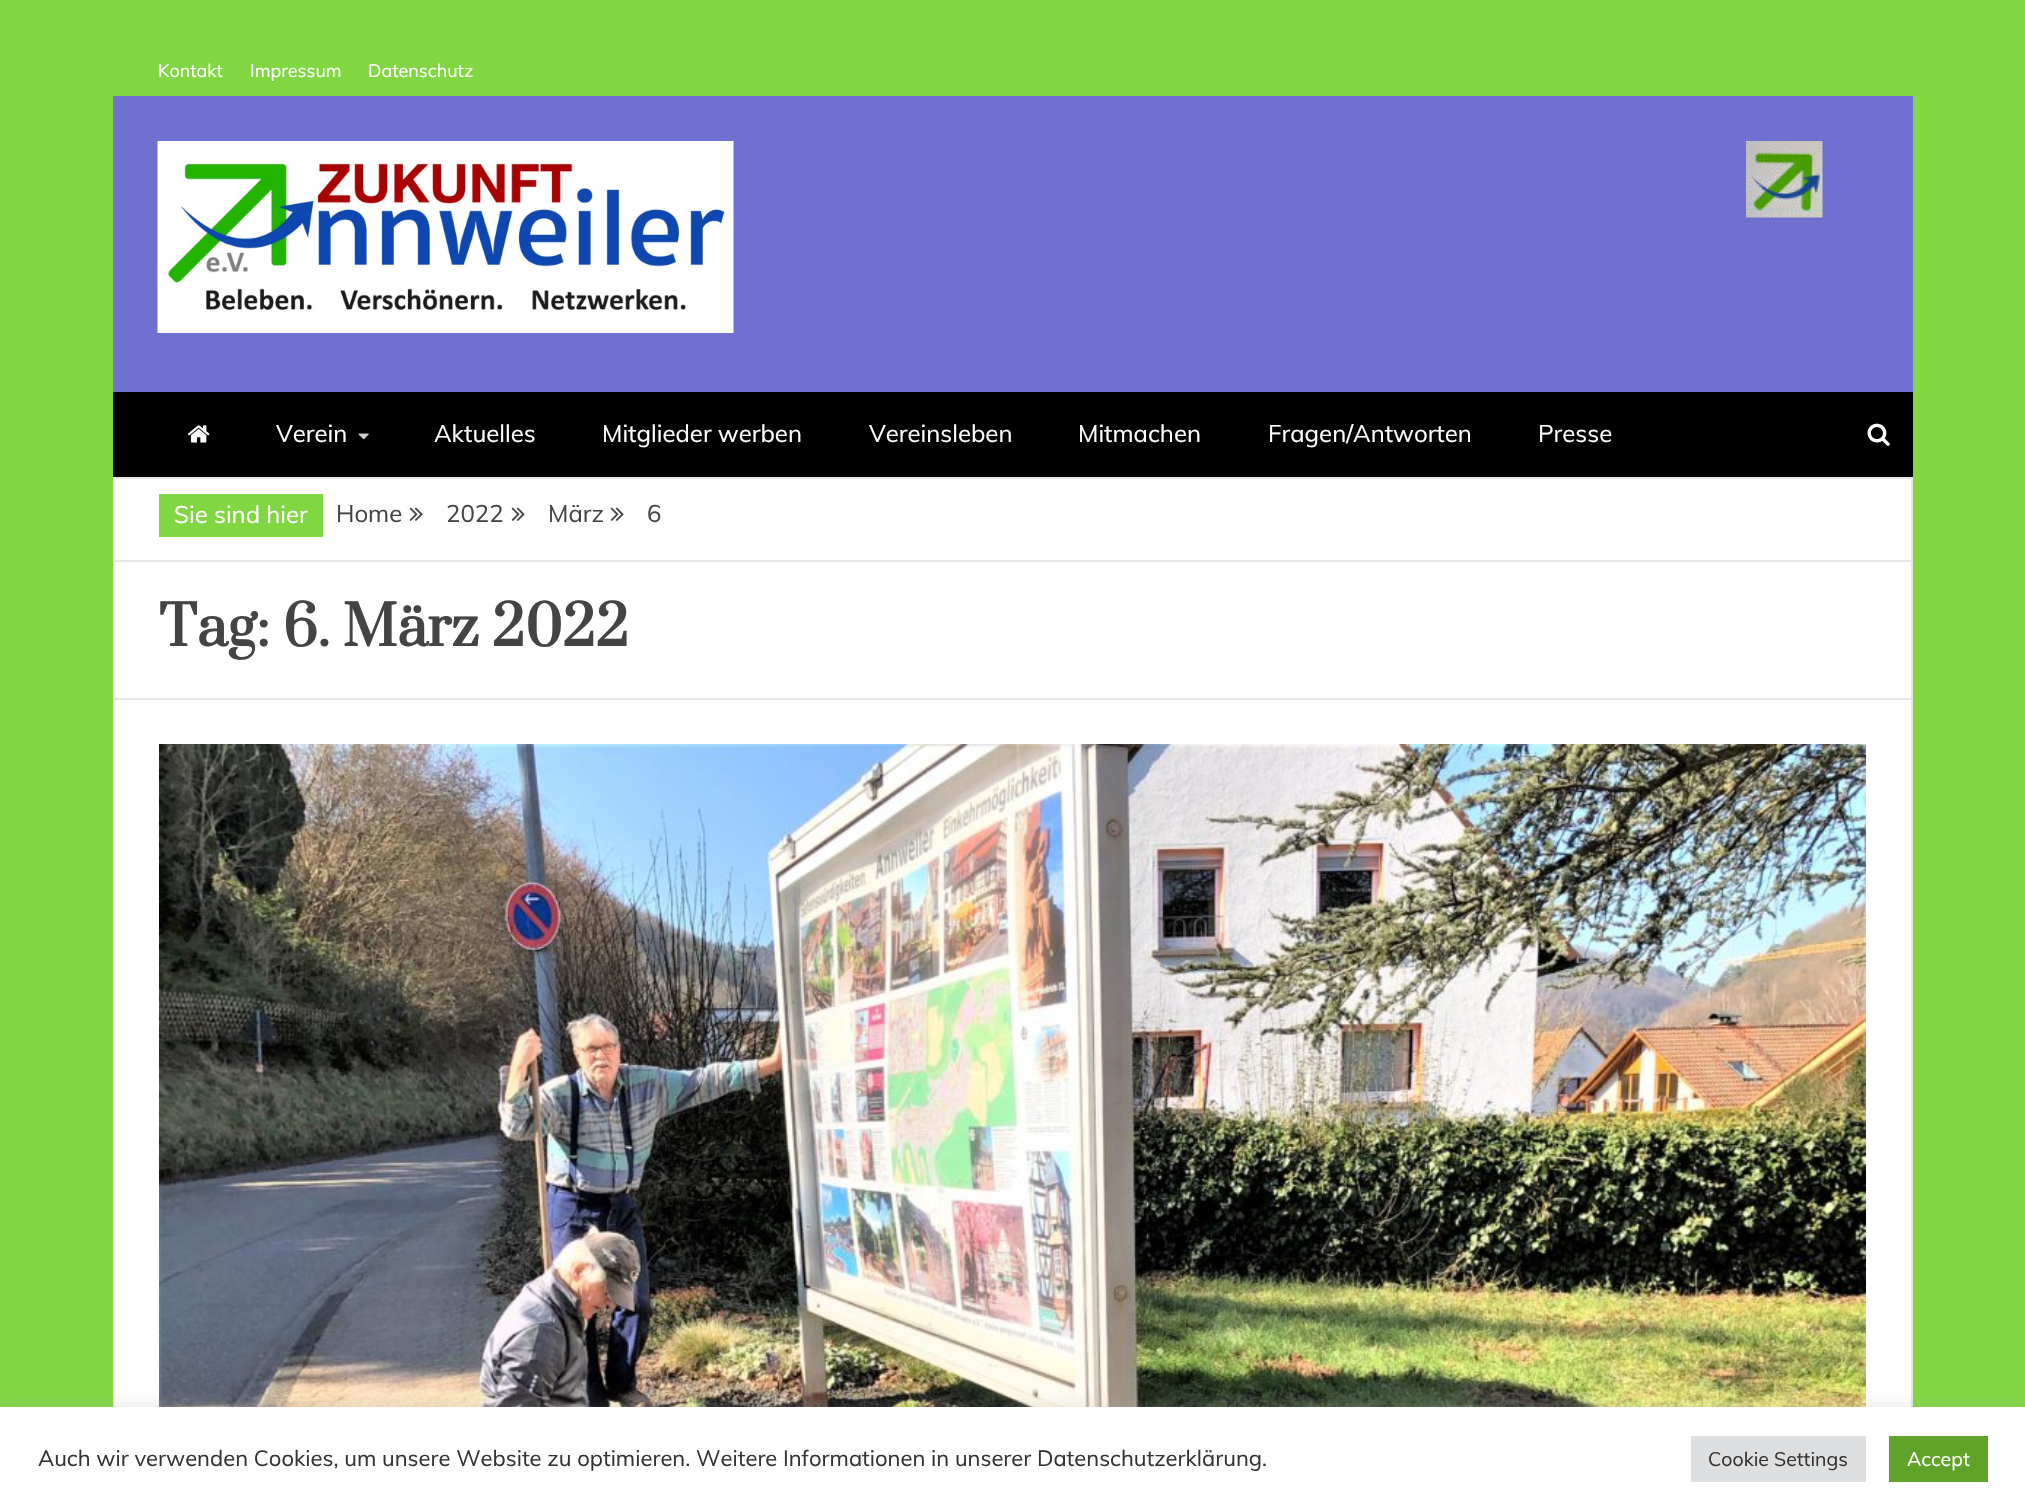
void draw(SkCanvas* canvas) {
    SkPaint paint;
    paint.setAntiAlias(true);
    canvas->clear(0xFF81D742);
    SkFont font1(fontMgr->matchFamilyStyle("Muli", SkFontStyle::Normal()), 18);
    font1.setSubpixel(true);
    paint.setColor(0xFFFFFFFF);
    canvas->drawString("Kontakt", 158, 77, font1, paint);
    canvas->drawString("Impressum", 250, 77, font1, paint);
    canvas->drawString("Datenschutz", 368, 77, font1, paint);
    paint.setColor(0xFF7070D1);
    canvas->drawRect(SkRect::MakeXYWH(113, 96, 1800, 296), paint);
    canvas->drawImageRect(SkImages::DeferredFromEncodedData(SkData::MakeFromFileName("img1.png")), SkRect::MakeXYWH(157, 141, 577, 192), SkSamplingOptions());
    canvas->drawImageRect(SkImages::DeferredFromEncodedData(SkData::MakeFromFileName("img2.png")), SkRect::MakeXYWH(1746, 141, 77, 77), SkSamplingOptions());
    paint.setColor(0xFF000000);
    canvas->drawRect(SkRect::MakeXYWH(113, 392, 1800, 85), paint);
    canvas->drawImageRect(SkImages::DeferredFromEncodedData(SkData::MakeFromFileName("img3.png")), SkRect::MakeXYWH(187, 425, 23, 18), SkSamplingOptions());
    SkFont font2(fontMgr->matchFamilyStyle("Muli", SkFontStyle::Normal()), 24);
    font2.setSubpixel(true);
    paint.setColor(0xFFFFFFFF);
    canvas->drawString("Verein", 276, 442, font2, paint);
    canvas->drawImageRect(SkImages::DeferredFromEncodedData(SkData::MakeFromFileName("img4.png")), SkRect::MakeXYWH(358, 433, 11, 7), SkSamplingOptions());
    canvas->drawString("Aktuelles", 434, 442, font2, paint);
    canvas->drawString("Mitglieder werben", 602, 442, font2, paint);
    canvas->drawString("Vereinsleben", 869, 442, font2, paint);
    canvas->drawString("Mitmachen", 1078, 442, font2, paint);
    canvas->drawString("Fragen/Antworten", 1268, 442, font2, paint);
    canvas->drawString("Presse", 1538, 442, font2, paint);
    canvas->drawImageRect(SkImages::DeferredFromEncodedData(SkData::MakeFromFileName("img5.png")), SkRect::MakeXYWH(1867, 423, 23, 23), SkSamplingOptions());
    paint.setStyle(SkPaint::kStroke_Style);
    paint.setStrokeWidth(2);
    paint.setColor(0xFFE6E6E6);
    canvas->drawRect(SkRect::MakeXYWH(114, 478, 1798, 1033), paint);
    paint.setStyle(SkPaint::kFill_Style);
    paint.setColor(0xFFFFFFFF);
    canvas->drawRect(SkRect::MakeXYWH(114, 479, 1797, 928), paint);
    paint.setColor(0xFFE6E6E6);
    canvas->drawRect(SkRect::MakeXYWH(114, 560, 1797, 2), paint);
    paint.setColor(0xFF81D742);
    canvas->drawRect(SkRect::MakeXYWH(159, 494, 164, 43), paint);
    paint.setColor(0xFFFFFFFF);
    canvas->drawString("Sie sind hier", 174, 523, font2, paint);
    paint.setColor(0xFF444444);
    canvas->drawString("Home", 336, 522, font2, paint);
    canvas->drawImageRect(SkImages::DeferredFromEncodedData(SkData::MakeFromFileName("img6.png")), SkRect::MakeXYWH(409, 507, 14, 14), SkSamplingOptions());
    canvas->drawString("2022", 446, 522, font2, paint);
    canvas->drawImageRect(SkImages::DeferredFromEncodedData(SkData::MakeFromFileName("img6.png")), SkRect::MakeXYWH(511, 507, 14, 14), SkSamplingOptions());
    canvas->drawString("März", 548, 522, font2, paint);
    canvas->drawImageRect(SkImages::DeferredFromEncodedData(SkData::MakeFromFileName("img6.png")), SkRect::MakeXYWH(610, 507, 14, 14), SkSamplingOptions());
    canvas->drawString("6", 647, 522, font2, paint);
    SkFont font3(fontMgr->matchFamilyStyle("Prata", SkFontStyle::Bold()), 54);
    font3.setSubpixel(true);
    canvas->drawString("Tag: 6. März 2022", 159, 646, font3, paint);
    paint.setColor(0xFFE6E6E6);
    canvas->drawRect(SkRect::MakeXYWH(114, 698, 1797, 2), paint);
    canvas->drawImageRect(SkImages::DeferredFromEncodedData(SkData::MakeFromFileName("img7.png")), SkRect::MakeXYWH(159, 744, 1707, 663), SkSamplingOptions());
    paint.setColor(0x4DACABAB);
    paint.setMaskFilter(SkMaskFilter::MakeBlur(kNormal_SkBlurStyle, 7.5f));
    canvas->drawRect(SkRect::MakeXYWH(0, 1406, 2025, 103), paint);
    paint.setMaskFilter(nullptr);
    paint.setColor(0xFFFFFFFF);
    canvas->drawRect(SkRect::MakeXYWH(0, 1407, 2025, 103), paint);
    SkFont font4(fontMgr->matchFamilyStyle("Muli", SkFontStyle::Normal()), 22);
    font4.setSubpixel(true);
    paint.setColor(0xFF333333);
    canvas->drawString("Auch wir verwenden Cookies, um unsere Website zu optimieren. Weitere Informationen in unserer Datenschutzerklärung.", 38, 1466, font4, paint);
    paint.setColor(0xFFDEDFE0);
    canvas->drawRect(SkRect::MakeXYWH(1691, 1436, 175, 46), paint);
    SkFont font5(fontMgr->matchFamilyStyle("Muli", SkFontStyle::Normal()), 19.5f);
    font5.setSubpixel(true);
    paint.setColor(0xFF333333);
    canvas->drawString("Cookie Settings", 1708, 1466, font5, paint);
    paint.setColor(0xFF61A229);
    canvas->drawRect(SkRect::MakeXYWH(1889, 1436, 99, 46), paint);
    paint.setColor(0xFFFFFFFF);
    canvas->drawString("Accept", 1907, 1466, font5, paint);
}
